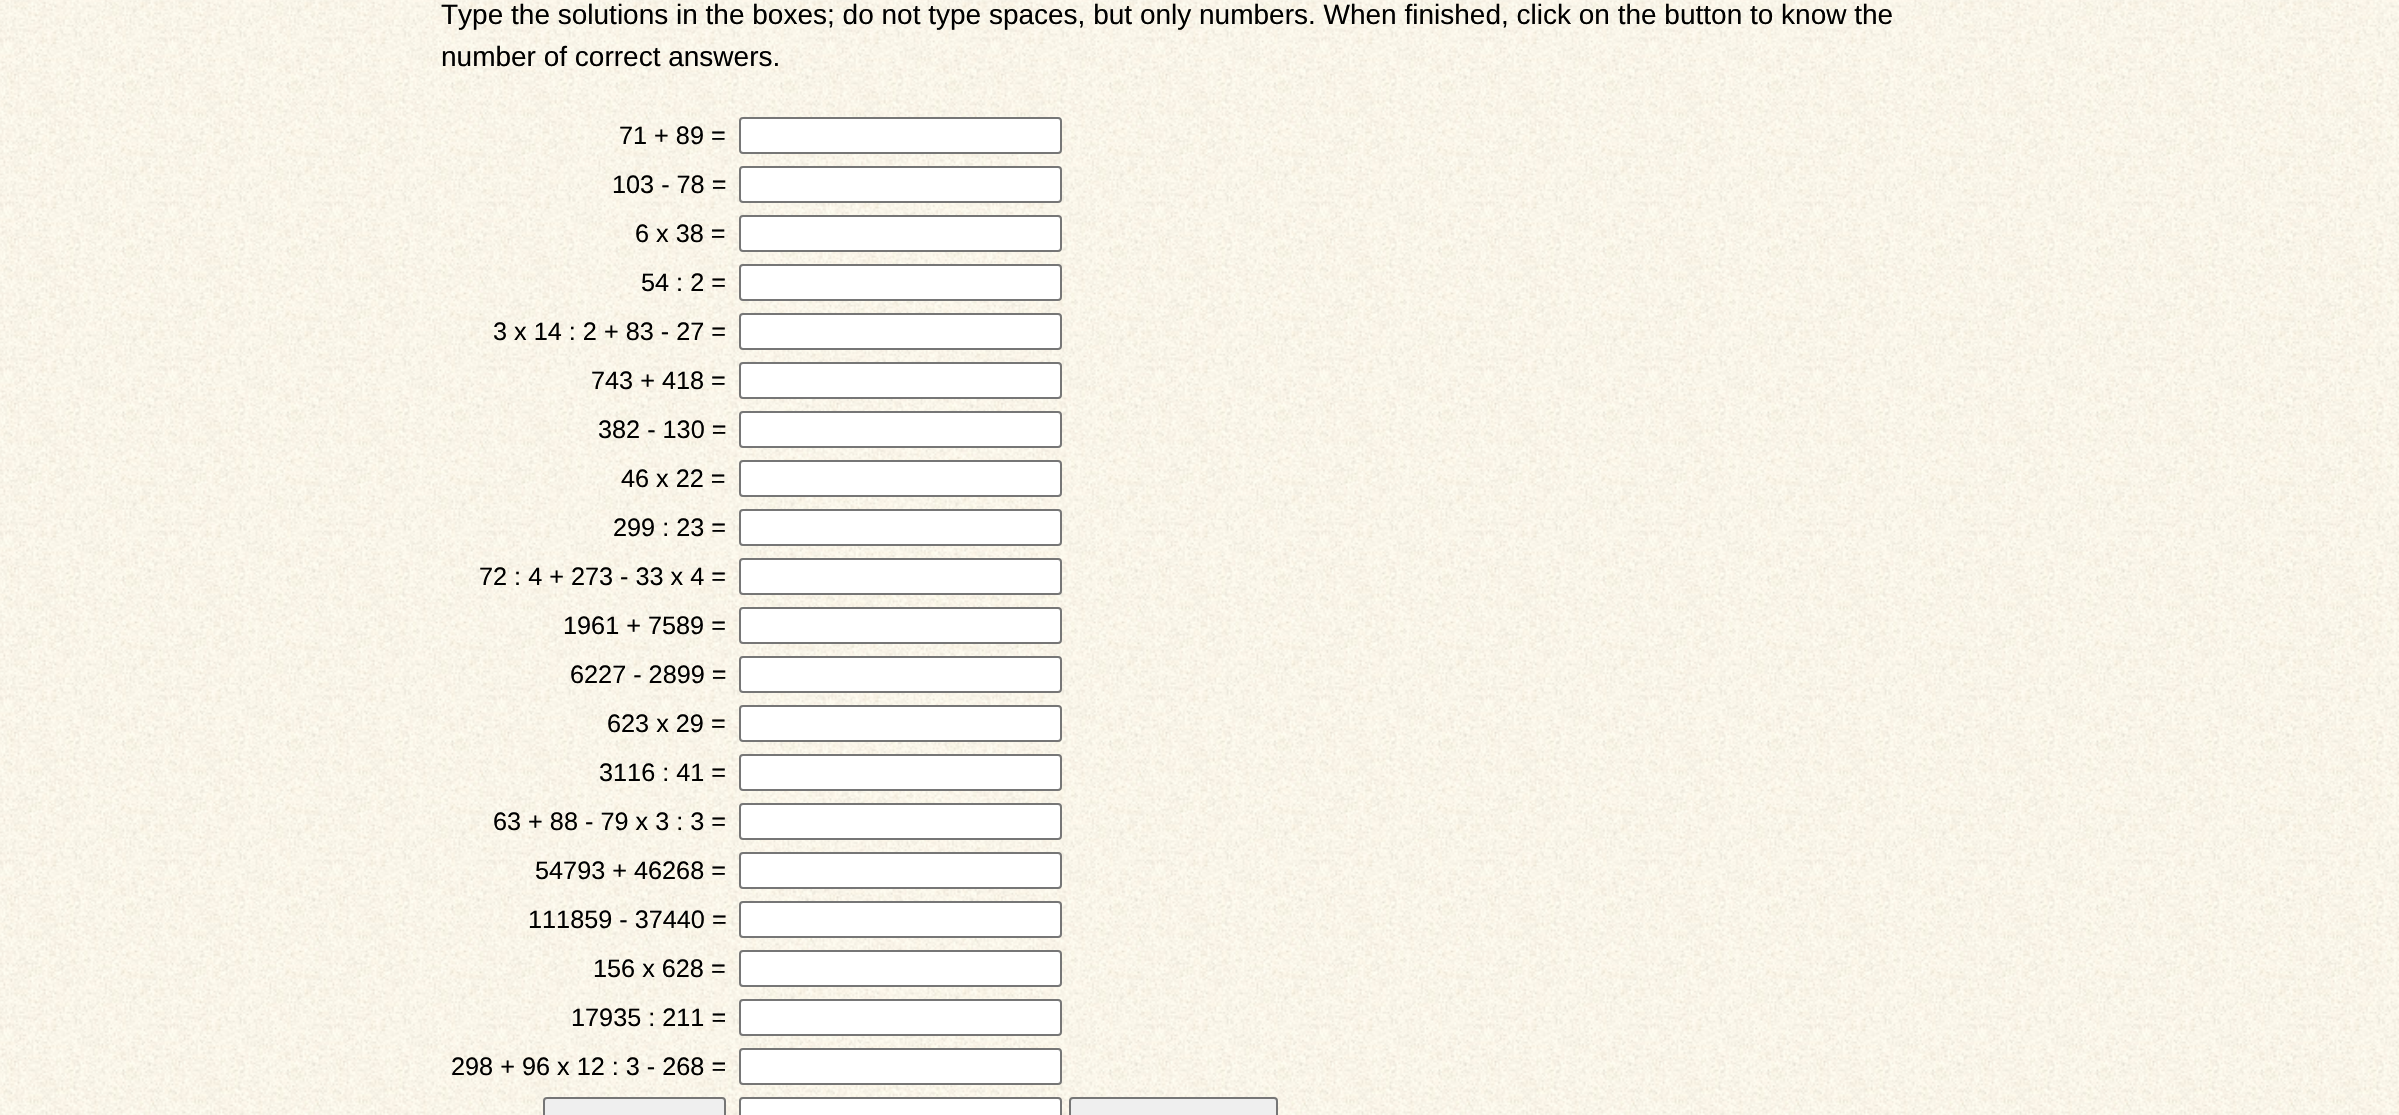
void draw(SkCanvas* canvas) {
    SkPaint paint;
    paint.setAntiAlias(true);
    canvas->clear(0xFFFFFFFF);
    canvas->drawImageRect(SkImages::DeferredFromEncodedData(SkData::MakeFromFileName("img1.png")), SkRect::MakeXYWH(0, 0, 2399, 1115), SkSamplingOptions());
    SkFont font1(fontMgr->matchFamilyStyle("Liberation Sans", SkFontStyle::Normal()), 28);
    font1.setSubpixel(true);
    paint.setColor(0xFF000000);
    canvas->drawString("Type the solutions in the boxes; do not type spaces, but only numbers. When finished, click on the button to know the", 441, 24, font1, paint);
    canvas->drawString("number of correct answers.", 441, 66, font1, paint);
    SkFont font2(fontMgr->matchFamilyStyle("Liberation Sans", SkFontStyle::Normal()), 25.25f);
    font2.setSubpixel(true);
    canvas->drawString("71 + 89 =", 619, 144, font2, paint);
    paint.setColor(0xFFFFFFFF);
    canvas->drawRoundRect(SkRect::MakeXYWH(740, 118, 321, 35), 3, 3, paint);
    paint.setStyle(SkPaint::kStroke_Style);
    paint.setStrokeWidth(2);
    paint.setColor(0xFF767676);
    canvas->drawRoundRect(SkRect::MakeXYWH(740, 118, 321, 35), 3, 3, paint);
    paint.setStyle(SkPaint::kFill_Style);
    paint.setColor(0xFF000000);
    canvas->drawString("103 - 78 =", 612, 193, font2, paint);
    paint.setColor(0xFFFFFFFF);
    canvas->drawRoundRect(SkRect::MakeXYWH(740, 167, 321, 35), 3, 3, paint);
    paint.setStyle(SkPaint::kStroke_Style);
    paint.setColor(0xFF767676);
    canvas->drawRoundRect(SkRect::MakeXYWH(740, 167, 321, 35), 3, 3, paint);
    paint.setStyle(SkPaint::kFill_Style);
    paint.setColor(0xFF000000);
    canvas->drawString("6 x 38 =", 635, 242, font2, paint);
    paint.setColor(0xFFFFFFFF);
    canvas->drawRoundRect(SkRect::MakeXYWH(740, 216, 321, 35), 3, 3, paint);
    paint.setStyle(SkPaint::kStroke_Style);
    paint.setColor(0xFF767676);
    canvas->drawRoundRect(SkRect::MakeXYWH(740, 216, 321, 35), 3, 3, paint);
    paint.setStyle(SkPaint::kFill_Style);
    paint.setColor(0xFF000000);
    canvas->drawString("54 : 2 =", 641, 291, font2, paint);
    paint.setColor(0xFFFFFFFF);
    canvas->drawRoundRect(SkRect::MakeXYWH(740, 265, 321, 35), 3, 3, paint);
    paint.setStyle(SkPaint::kStroke_Style);
    paint.setColor(0xFF767676);
    canvas->drawRoundRect(SkRect::MakeXYWH(740, 265, 321, 35), 3, 3, paint);
    paint.setStyle(SkPaint::kFill_Style);
    paint.setColor(0xFF000000);
    canvas->drawString("3 x 14 : 2 + 83 - 27 =", 493, 340, font2, paint);
    paint.setColor(0xFFFFFFFF);
    canvas->drawRoundRect(SkRect::MakeXYWH(740, 314, 321, 35), 3, 3, paint);
    paint.setStyle(SkPaint::kStroke_Style);
    paint.setColor(0xFF767676);
    canvas->drawRoundRect(SkRect::MakeXYWH(740, 314, 321, 35), 3, 3, paint);
    paint.setStyle(SkPaint::kFill_Style);
    paint.setColor(0xFF000000);
    canvas->drawString("743 + 418 =", 591, 389, font2, paint);
    paint.setColor(0xFFFFFFFF);
    canvas->drawRoundRect(SkRect::MakeXYWH(740, 363, 321, 35), 3, 3, paint);
    paint.setStyle(SkPaint::kStroke_Style);
    paint.setColor(0xFF767676);
    canvas->drawRoundRect(SkRect::MakeXYWH(740, 363, 321, 35), 3, 3, paint);
    paint.setStyle(SkPaint::kFill_Style);
    paint.setColor(0xFF000000);
    canvas->drawString("382 - 130 =", 598, 438, font2, paint);
    paint.setColor(0xFFFFFFFF);
    canvas->drawRoundRect(SkRect::MakeXYWH(740, 412, 321, 35), 3, 3, paint);
    paint.setStyle(SkPaint::kStroke_Style);
    paint.setColor(0xFF767676);
    canvas->drawRoundRect(SkRect::MakeXYWH(740, 412, 321, 35), 3, 3, paint);
    paint.setStyle(SkPaint::kFill_Style);
    paint.setColor(0xFF000000);
    canvas->drawString("46 x 22 =", 621, 487, font2, paint);
    paint.setColor(0xFFFFFFFF);
    canvas->drawRoundRect(SkRect::MakeXYWH(740, 461, 321, 35), 3, 3, paint);
    paint.setStyle(SkPaint::kStroke_Style);
    paint.setColor(0xFF767676);
    canvas->drawRoundRect(SkRect::MakeXYWH(740, 461, 321, 35), 3, 3, paint);
    paint.setStyle(SkPaint::kFill_Style);
    paint.setColor(0xFF000000);
    canvas->drawString("299 : 23 =", 613, 536, font2, paint);
    paint.setColor(0xFFFFFFFF);
    canvas->drawRoundRect(SkRect::MakeXYWH(740, 510, 321, 35), 3, 3, paint);
    paint.setStyle(SkPaint::kStroke_Style);
    paint.setColor(0xFF767676);
    canvas->drawRoundRect(SkRect::MakeXYWH(740, 510, 321, 35), 3, 3, paint);
    paint.setStyle(SkPaint::kFill_Style);
    paint.setColor(0xFF000000);
    canvas->drawString("72 : 4 + 273 - 33 x 4 =", 479, 585, font2, paint);
    paint.setColor(0xFFFFFFFF);
    canvas->drawRoundRect(SkRect::MakeXYWH(740, 559, 321, 35), 3, 3, paint);
    paint.setStyle(SkPaint::kStroke_Style);
    paint.setColor(0xFF767676);
    canvas->drawRoundRect(SkRect::MakeXYWH(740, 559, 321, 35), 3, 3, paint);
    paint.setStyle(SkPaint::kFill_Style);
    paint.setColor(0xFF000000);
    canvas->drawString("1961 + 7589 =", 563, 634, font2, paint);
    paint.setColor(0xFFFFFFFF);
    canvas->drawRoundRect(SkRect::MakeXYWH(740, 608, 321, 35), 3, 3, paint);
    paint.setStyle(SkPaint::kStroke_Style);
    paint.setColor(0xFF767676);
    canvas->drawRoundRect(SkRect::MakeXYWH(740, 608, 321, 35), 3, 3, paint);
    paint.setStyle(SkPaint::kFill_Style);
    paint.setColor(0xFF000000);
    canvas->drawString("6227 - 2899 =", 570, 683, font2, paint);
    paint.setColor(0xFFFFFFFF);
    canvas->drawRoundRect(SkRect::MakeXYWH(740, 657, 321, 35), 3, 3, paint);
    paint.setStyle(SkPaint::kStroke_Style);
    paint.setColor(0xFF767676);
    canvas->drawRoundRect(SkRect::MakeXYWH(740, 657, 321, 35), 3, 3, paint);
    paint.setStyle(SkPaint::kFill_Style);
    paint.setColor(0xFF000000);
    canvas->drawString("623 x 29 =", 607, 732, font2, paint);
    paint.setColor(0xFFFFFFFF);
    canvas->drawRoundRect(SkRect::MakeXYWH(740, 706, 321, 35), 3, 3, paint);
    paint.setStyle(SkPaint::kStroke_Style);
    paint.setColor(0xFF767676);
    canvas->drawRoundRect(SkRect::MakeXYWH(740, 706, 321, 35), 3, 3, paint);
    paint.setStyle(SkPaint::kFill_Style);
    paint.setColor(0xFF000000);
    canvas->drawString("3116 : 41 =", 599, 781, font2, paint);
    paint.setColor(0xFFFFFFFF);
    canvas->drawRoundRect(SkRect::MakeXYWH(740, 755, 321, 35), 3, 3, paint);
    paint.setStyle(SkPaint::kStroke_Style);
    paint.setColor(0xFF767676);
    canvas->drawRoundRect(SkRect::MakeXYWH(740, 755, 321, 35), 3, 3, paint);
    paint.setStyle(SkPaint::kFill_Style);
    paint.setColor(0xFF000000);
    canvas->drawString("63 + 88 - 79 x 3 : 3 =", 493, 830, font2, paint);
    paint.setColor(0xFFFFFFFF);
    canvas->drawRoundRect(SkRect::MakeXYWH(740, 804, 321, 35), 3, 3, paint);
    paint.setStyle(SkPaint::kStroke_Style);
    paint.setColor(0xFF767676);
    canvas->drawRoundRect(SkRect::MakeXYWH(740, 804, 321, 35), 3, 3, paint);
    paint.setStyle(SkPaint::kFill_Style);
    paint.setColor(0xFF000000);
    canvas->drawString("54793 + 46268 =", 535, 879, font2, paint);
    paint.setColor(0xFFFFFFFF);
    canvas->drawRoundRect(SkRect::MakeXYWH(740, 853, 321, 35), 3, 3, paint);
    paint.setStyle(SkPaint::kStroke_Style);
    paint.setColor(0xFF767676);
    canvas->drawRoundRect(SkRect::MakeXYWH(740, 853, 321, 35), 3, 3, paint);
    paint.setStyle(SkPaint::kFill_Style);
    paint.setColor(0xFF000000);
    canvas->drawString("111859 - 37440 =", 528, 928, font2, paint);
    paint.setColor(0xFFFFFFFF);
    canvas->drawRoundRect(SkRect::MakeXYWH(740, 902, 321, 35), 3, 3, paint);
    paint.setStyle(SkPaint::kStroke_Style);
    paint.setColor(0xFF767676);
    canvas->drawRoundRect(SkRect::MakeXYWH(740, 902, 321, 35), 3, 3, paint);
    paint.setStyle(SkPaint::kFill_Style);
    paint.setColor(0xFF000000);
    canvas->drawString("156 x 628 =", 593, 977, font2, paint);
    paint.setColor(0xFFFFFFFF);
    canvas->drawRoundRect(SkRect::MakeXYWH(740, 951, 321, 35), 3, 3, paint);
    paint.setStyle(SkPaint::kStroke_Style);
    paint.setColor(0xFF767676);
    canvas->drawRoundRect(SkRect::MakeXYWH(740, 951, 321, 35), 3, 3, paint);
    paint.setStyle(SkPaint::kFill_Style);
    paint.setColor(0xFF000000);
    canvas->drawString("17935 : 211 =", 571, 1026, font2, paint);
    paint.setColor(0xFFFFFFFF);
    canvas->drawRoundRect(SkRect::MakeXYWH(740, 1000, 321, 35), 3, 3, paint);
    paint.setStyle(SkPaint::kStroke_Style);
    paint.setColor(0xFF767676);
    canvas->drawRoundRect(SkRect::MakeXYWH(740, 1000, 321, 35), 3, 3, paint);
    paint.setStyle(SkPaint::kFill_Style);
    paint.setColor(0xFF000000);
    canvas->drawString("298 + 96 x 12 : 3 - 268 =", 451, 1075, font2, paint);
    paint.setColor(0xFFFFFFFF);
    canvas->drawRoundRect(SkRect::MakeXYWH(740, 1049, 321, 35), 3, 3, paint);
    paint.setStyle(SkPaint::kStroke_Style);
    paint.setColor(0xFF767676);
    canvas->drawRoundRect(SkRect::MakeXYWH(740, 1049, 321, 35), 3, 3, paint);
    paint.setStyle(SkPaint::kFill_Style);
    paint.setColor(0xFFEFEFEF);
    canvas->drawRoundRect(SkRect::MakeXYWH(544, 1098, 181, 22), 3, 3, paint);
    paint.setStyle(SkPaint::kStroke_Style);
    paint.setColor(0xFF767676);
    canvas->drawRoundRect(SkRect::MakeXYWH(544, 1098, 181, 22), 3, 3, paint);
    paint.setStyle(SkPaint::kFill_Style);
    paint.setColor(0xFFFFFFFF);
    canvas->drawRoundRect(SkRect::MakeXYWH(740, 1098, 321, 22), 3, 3, paint);
    paint.setStyle(SkPaint::kStroke_Style);
    paint.setColor(0xFF767676);
    canvas->drawRoundRect(SkRect::MakeXYWH(740, 1098, 321, 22), 3, 3, paint);
    paint.setStyle(SkPaint::kFill_Style);
    paint.setColor(0xFFEFEFEF);
    canvas->drawRoundRect(SkRect::MakeXYWH(1070, 1098, 207, 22), 3, 3, paint);
    paint.setStyle(SkPaint::kStroke_Style);
    paint.setColor(0xFF767676);
    canvas->drawRoundRect(SkRect::MakeXYWH(1070, 1098, 207, 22), 3, 3, paint);
}
